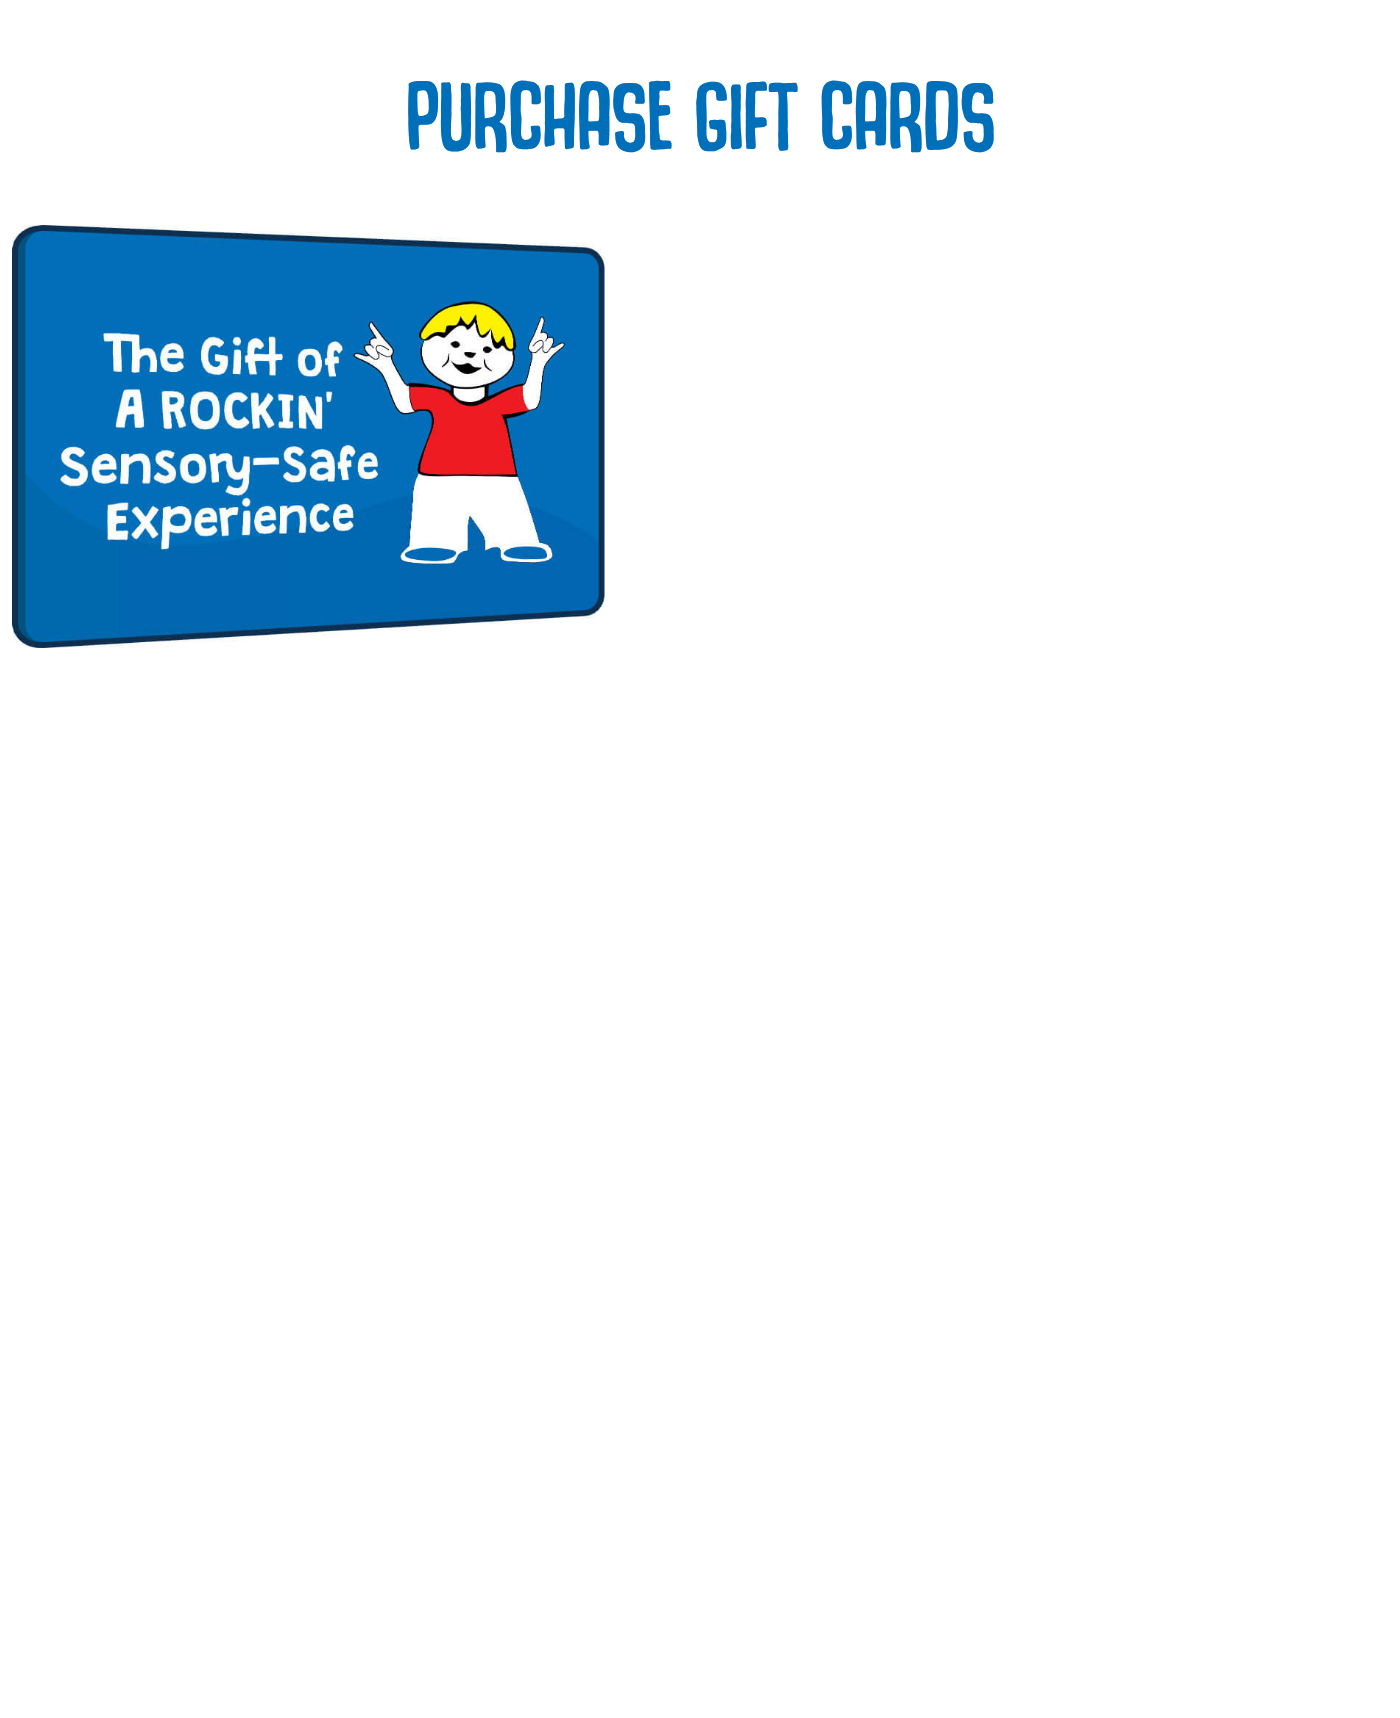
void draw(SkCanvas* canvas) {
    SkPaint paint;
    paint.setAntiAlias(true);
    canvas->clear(0xFFFFFFFF);
    SkFont font1(fontMgr->matchFamilyStyle("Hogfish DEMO", SkFontStyle::Normal()), 66);
    font1.setSubpixel(true);
    paint.setColor(0xFF006FB9);
    canvas->drawString("PURCHASE GIFT CARDS", 406, 148, font1, paint);
    canvas->drawImageRect(SkImages::DeferredFromEncodedData(SkData::MakeFromFileName("img1.png")), SkRect::MakeXYWH(12, 225, 593, 423), SkSamplingOptions());
}
